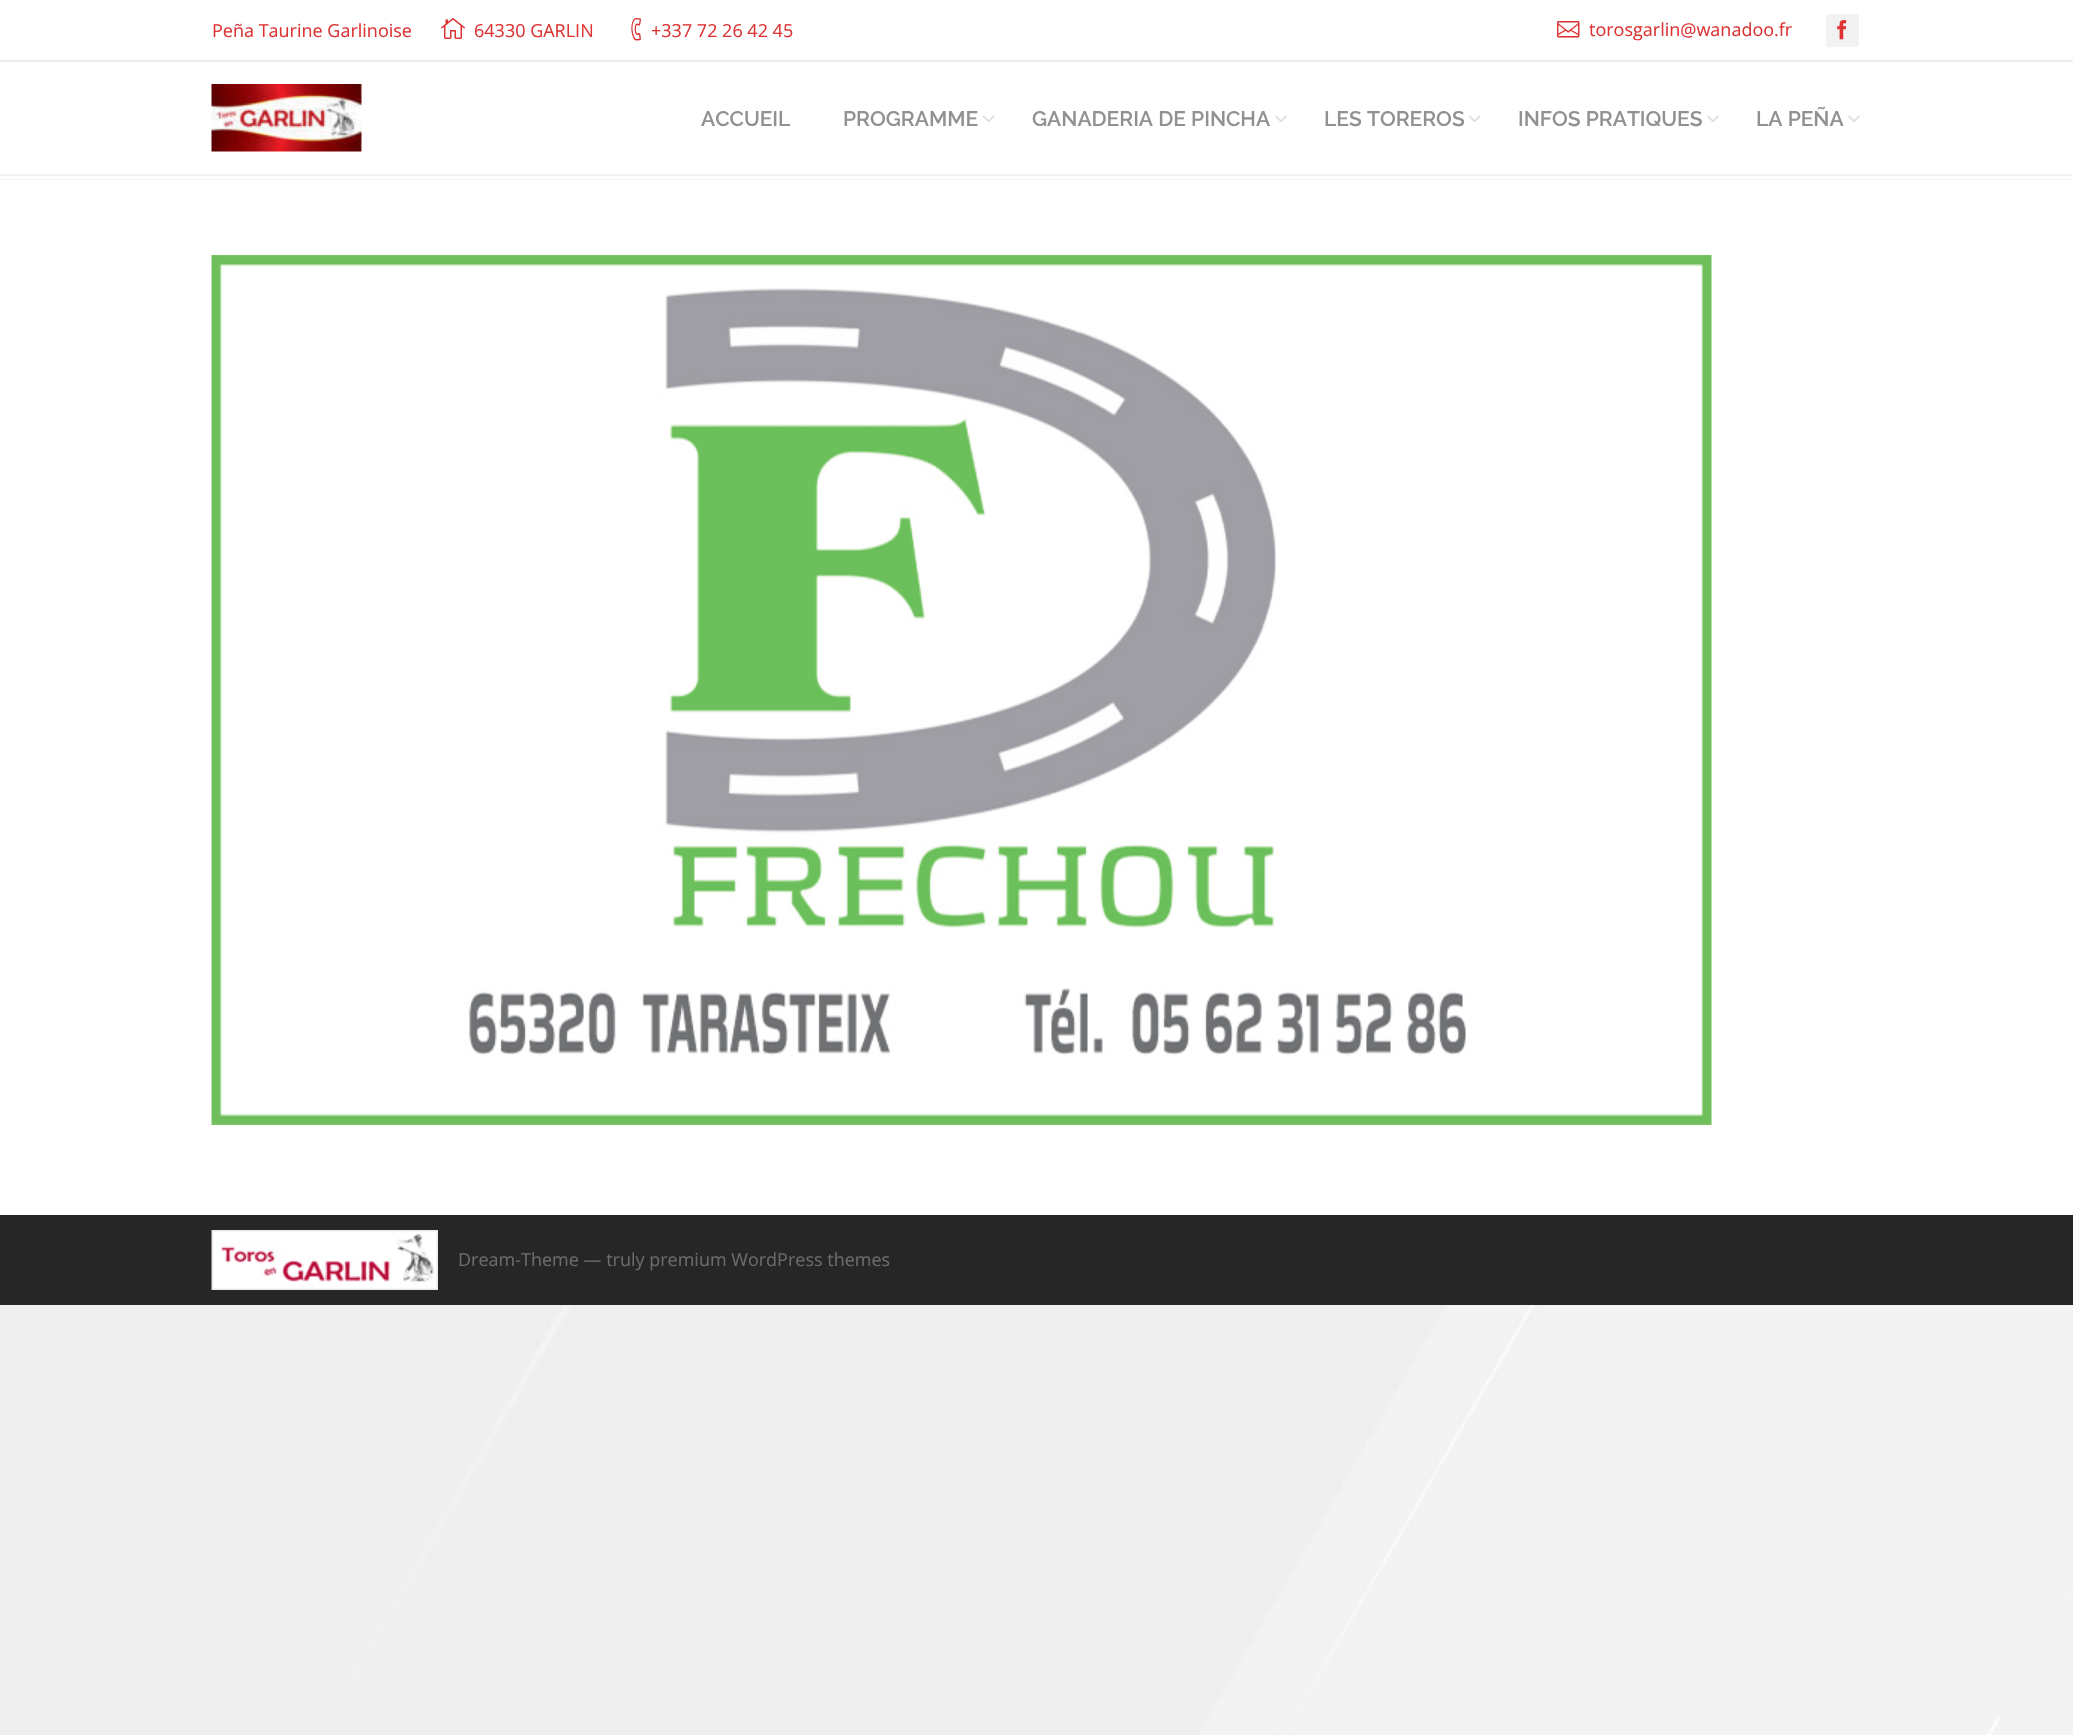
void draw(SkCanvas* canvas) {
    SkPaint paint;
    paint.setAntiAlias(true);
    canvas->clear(0xFFFFFFFF);
    canvas->drawImageRect(SkImages::DeferredFromEncodedData(SkData::MakeFromFileName("img1.png")), SkRect::MakeXYWH(0, 1305, 2073, 430), SkSamplingOptions());
    paint.setColor(0xFFF3F4F5);
    canvas->drawRect(SkRect::MakeXYWH(0, 174, 2073, 2), paint);
    paint.setColor(0xFFEDEDED);
    canvas->drawRect(SkRect::MakeXYWH(0, 60, 2073, 2), paint);
    SkFont font1(fontMgr->matchFamilyStyle("Open Sans", SkFontStyle::Normal()), 18);
    font1.setSubpixel(true);
    paint.setColor(0xFFDD3333);
    canvas->drawString("Peña Taurine Garlinoise", 212, 37, font1, paint);
    canvas->drawImageRect(SkImages::DeferredFromEncodedData(SkData::MakeFromFileName("img2.png")), SkRect::MakeXYWH(441, 18, 24, 21), SkSamplingOptions());
    canvas->drawString("64330 GARLIN", 474, 37, font1, paint);
    canvas->drawImageRect(SkImages::DeferredFromEncodedData(SkData::MakeFromFileName("img3.png")), SkRect::MakeXYWH(631, 18, 10, 23), SkSamplingOptions());
    canvas->drawString("+337 72 26 42 45", 651, 37, font1, paint);
    canvas->drawImageRect(SkImages::DeferredFromEncodedData(SkData::MakeFromFileName("img4.png")), SkRect::MakeXYWH(1557, 21, 23, 17), SkSamplingOptions());
    canvas->drawString("torosgarlin@wanadoo.fr", 1589, 36, font1, paint);
    paint.setColor(0xFFF2F2F2);
    canvas->drawRoundRect(SkRect::MakeXYWH(1826, 14, 33, 33), 3, 3, paint);
    canvas->drawImageRect(SkImages::DeferredFromEncodedData(SkData::MakeFromFileName("img5.png")), SkRect::MakeXYWH(1837, 20, 10, 20), SkSamplingOptions());
    canvas->drawImageRect(SkImages::DeferredFromEncodedData(SkData::MakeFromFileName("img6.png")), SkRect::MakeXYWH(211, 84, 151, 68), SkSamplingOptions());
    SkFont font2(fontMgr->matchFamilyStyle("Raleway", SkFontStyle(600, SkFontStyle::kNormal_Width, SkFontStyle::kUpright_Slant)), 21);
    font2.setSubpixel(true);
    paint.setColor(0xFF919191);
    canvas->drawString("ACCUEIL", 701, 126, font2, paint);
    canvas->drawString("PROGRAMME", 843, 126, font2, paint);
    canvas->drawImageRect(SkImages::DeferredFromEncodedData(SkData::MakeFromFileName("img7.png")), SkRect::MakeXYWH(983, 115, 12, 7), SkSamplingOptions());
    canvas->drawString("GANADERIA DE PINCHA", 1032, 126, font2, paint);
    canvas->drawImageRect(SkImages::DeferredFromEncodedData(SkData::MakeFromFileName("img8.png")), SkRect::MakeXYWH(1275, 115, 12, 7), SkSamplingOptions());
    canvas->drawString("LES TOREROS", 1324, 126, font2, paint);
    canvas->drawImageRect(SkImages::DeferredFromEncodedData(SkData::MakeFromFileName("img7.png")), SkRect::MakeXYWH(1469, 115, 12, 7), SkSamplingOptions());
    canvas->drawString("INFOS PRATIQUES", 1518, 126, font2, paint);
    canvas->drawImageRect(SkImages::DeferredFromEncodedData(SkData::MakeFromFileName("img8.png")), SkRect::MakeXYWH(1707, 115, 12, 7), SkSamplingOptions());
    canvas->drawString("LA PEÑA", 1756, 126, font2, paint);
    canvas->drawImageRect(SkImages::DeferredFromEncodedData(SkData::MakeFromFileName("img8.png")), SkRect::MakeXYWH(1848, 115, 12, 7), SkSamplingOptions());
    paint.setColor(0xFFF3F4F5);
    canvas->drawRect(SkRect::MakeXYWH(0, 179, 2073, 1), paint);
    canvas->drawImageRect(SkImages::DeferredFromEncodedData(SkData::MakeFromFileName("img9.png")), SkRect::MakeXYWH(211, 255, 1501, 870), SkSamplingOptions());
    paint.setColor(0xFF262626);
    canvas->drawRect(SkRect::MakeXYWH(0, 1215, 2073, 90), paint);
    canvas->drawImageRect(SkImages::DeferredFromEncodedData(SkData::MakeFromFileName("img10.png")), SkRect::MakeXYWH(211, 1230, 227, 60), SkSamplingOptions());
    paint.setColor(0xFF6B6B6B);
    canvas->drawString("Dream-Theme — truly premium WordPress themes", 458, 1266, font1, paint);
}
